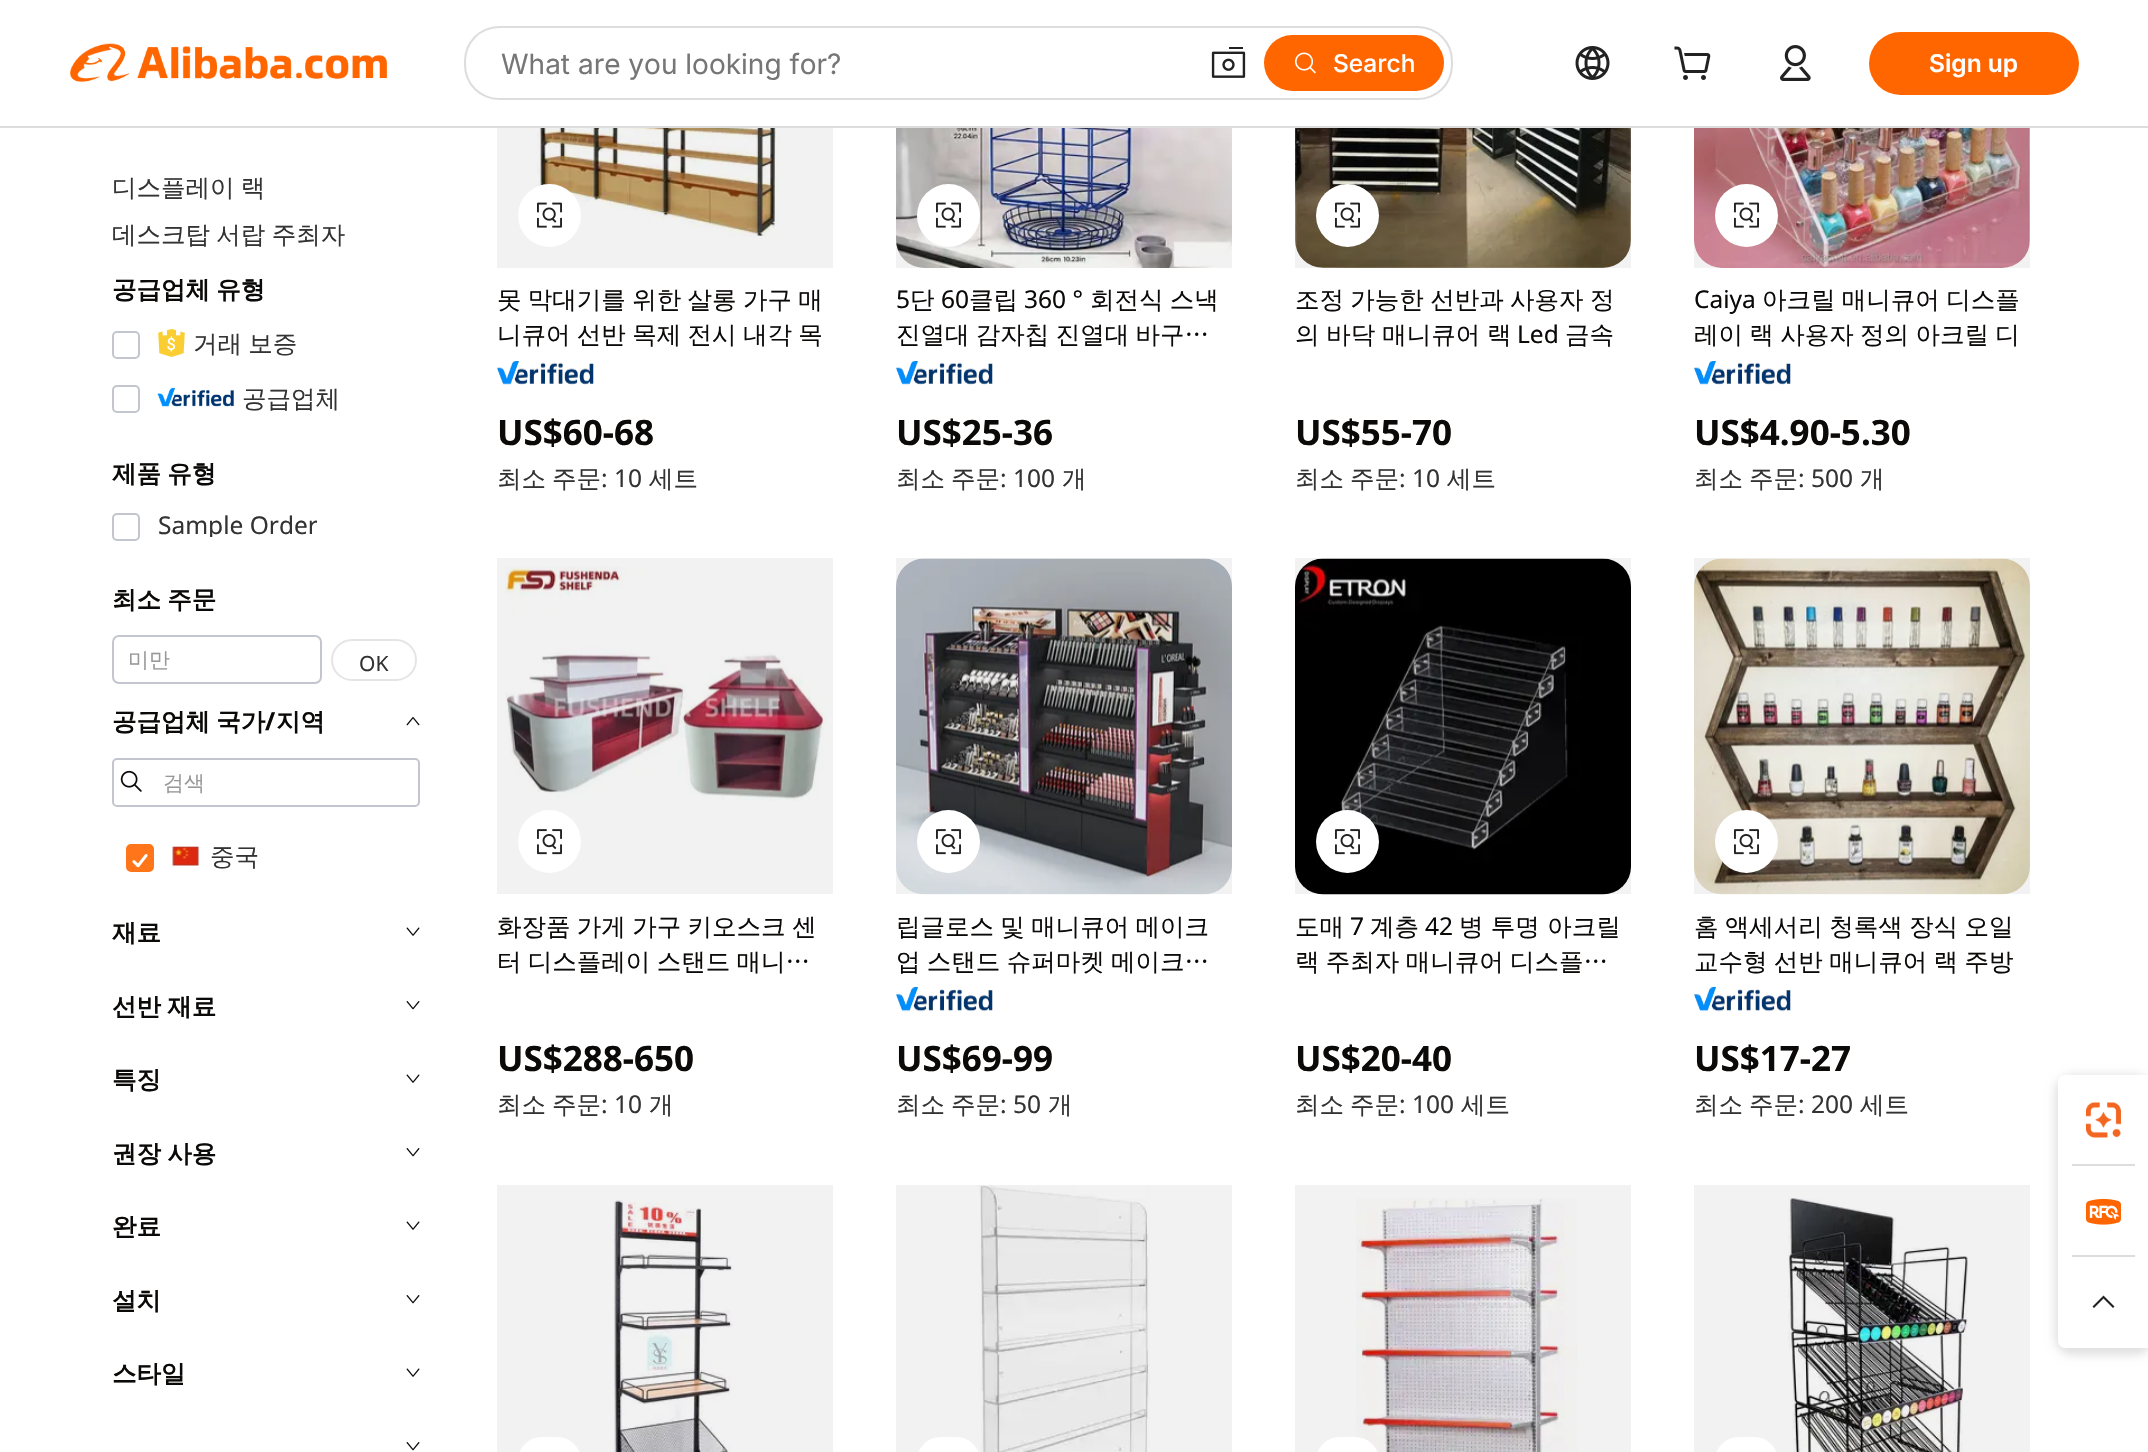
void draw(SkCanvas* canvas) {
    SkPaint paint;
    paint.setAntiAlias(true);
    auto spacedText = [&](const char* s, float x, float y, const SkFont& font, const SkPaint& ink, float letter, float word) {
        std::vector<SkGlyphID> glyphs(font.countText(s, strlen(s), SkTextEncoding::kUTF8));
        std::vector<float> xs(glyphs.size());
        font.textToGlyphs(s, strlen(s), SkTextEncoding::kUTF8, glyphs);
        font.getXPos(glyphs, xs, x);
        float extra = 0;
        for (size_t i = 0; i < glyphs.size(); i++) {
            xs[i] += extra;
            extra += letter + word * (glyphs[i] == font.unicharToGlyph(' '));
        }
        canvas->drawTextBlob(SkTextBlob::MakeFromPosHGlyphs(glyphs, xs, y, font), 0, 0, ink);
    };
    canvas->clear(0xFFFFFFFF);
    paint.setColor(0xFFDDDDDD);
    canvas->drawRect(SkRect::MakeXYWH(0, 126, 2148, 2), paint);
    canvas->drawImageRect(SkImages::DeferredFromEncodedData(SkData::MakeFromFileName("img1.png")), SkRect::MakeXYWH(70, 43, 317, 39), SkSamplingOptions());
    canvas->drawRoundRect(SkRect::MakeXYWH(464, 26, 989, 74), 35, 35, paint);
    paint.setColor(0xFFFFFFFF);
    canvas->drawRoundRect(SkRect::MakeXYWH(466, 28, 985, 70), 33, 33, paint);
    SkFont font1(fontMgr->matchFamilyStyle("Inter", SkFontStyle::Normal()), 28);
    font1.setSubpixel(true);
    paint.setColor(0xFF767676);
    canvas->drawString("What are you looking for?", 501, 74, font1, paint);
    canvas->drawImageRect(SkImages::DeferredFromEncodedData(SkData::MakeFromFileName("img2.png")), SkRect::MakeXYWH(1211, 47, 35, 31), SkSamplingOptions());
    paint.setColor(0xFFFF6600);
    canvas->drawRoundRect(SkRect::MakeXYWH(1264, 35, 180, 56), 28, 28, paint);
    canvas->drawImageRect(SkImages::DeferredFromEncodedData(SkData::MakeFromFileName("img3.png")), SkRect::MakeXYWH(1295, 52, 21, 22), SkSamplingOptions());
    SkFont font2(fontMgr->matchFamilyStyle("Inter", SkFontStyle(500, SkFontStyle::kNormal_Width, SkFontStyle::kUpright_Slant)), 24.5f);
    font2.setSubpixel(true);
    paint.setColor(0xFFFFFFFF);
    canvas->drawString("Search", 1333, 72, font2, paint);
    canvas->drawImageRect(SkImages::DeferredFromEncodedData(SkData::MakeFromFileName("img4.png")), SkRect::MakeXYWH(1575, 46, 35, 34), SkSamplingOptions());
    canvas->drawImageRect(SkImages::DeferredFromEncodedData(SkData::MakeFromFileName("img5.png")), SkRect::MakeXYWH(1674, 46, 37, 34), SkSamplingOptions());
    canvas->drawImageRect(SkImages::DeferredFromEncodedData(SkData::MakeFromFileName("img6.png")), SkRect::MakeXYWH(1780, 45, 31, 36), SkSamplingOptions());
    paint.setColor(0xFFFF6600);
    canvas->drawRoundRect(SkRect::MakeXYWH(1869, 32, 210, 63), 31.5f, 31.5f, paint);
    SkFont font3(fontMgr->matchFamilyStyle("Inter", SkFontStyle(600, SkFontStyle::kNormal_Width, SkFontStyle::kUpright_Slant)), 24.5f);
    font3.setSubpixel(true);
    paint.setColor(0xFFFFFFFF);
    canvas->drawString("Sign up", 1929, 72, font3, paint);
    SkFont font4(fontMgr->matchFamilyStyle("WenQuanYi Zen Hei", SkFontStyle(500, SkFontStyle::kNormal_Width, SkFontStyle::kUpright_Slant)), 24.5f);
    font4.setSubpixel(true);
    paint.setColor(0xFF333333);
    spacedText("디스플레이 랙", 112, 196, font4, paint, 0, -1);
    spacedText("데스크탑 서랍 주최자", 112, 243, font4, paint, 0, -1);
    SkFont font5(fontMgr->matchFamilyStyle("WenQuanYi Zen Hei", SkFontStyle::Bold()), 24.5f);
    font5.setSubpixel(true);
    paint.setColor(0xFF0C0A09);
    spacedText("공급업체 유형", 112, 298, font5, paint, 0, -1);
    paint.setStyle(SkPaint::kStroke_Style);
    paint.setStrokeWidth(2);
    paint.setColor(0xFFC4C6CF);
    canvas->drawRoundRect(SkRect::MakeXYWH(113, 332, 26, 26), 4, 4, paint);
    canvas->drawImageRect(SkImages::DeferredFromEncodedData(SkData::MakeFromFileName("img7.png")), SkRect::MakeXYWH(158, 329, 27, 28), SkSamplingOptions());
    paint.setStyle(SkPaint::kFill_Style);
    paint.setColor(0xFF333333);
    spacedText("거래 보증", 193, 352, font4, paint, 0, -1);
    paint.setStyle(SkPaint::kStroke_Style);
    paint.setColor(0xFFC4C6CF);
    canvas->drawRoundRect(SkRect::MakeXYWH(113, 386, 26, 26), 4, 4, paint);
    canvas->drawImageRect(SkImages::DeferredFromEncodedData(SkData::MakeFromFileName("img8.png")), SkRect::MakeXYWH(157, 387, 77, 20), SkSamplingOptions());
    paint.setStyle(SkPaint::kFill_Style);
    paint.setColor(0xFF333333);
    canvas->drawString("공급업체", 242, 407, font4, paint);
    paint.setColor(0xFF0C0A09);
    spacedText("제품 유형", 112, 482, font5, paint, 0, -1);
    paint.setStyle(SkPaint::kStroke_Style);
    paint.setColor(0xFFC4C6CF);
    canvas->drawRoundRect(SkRect::MakeXYWH(113, 514, 26, 26), 4, 4, paint);
    canvas->save();
    canvas->clipRect(SkRect::MakeXYWH(158, 513, 159, 24));
    SkFont font6(fontMgr->matchFamilyStyle("Noto Sans", SkFontStyle::Normal()), 24.5f);
    font6.setSubpixel(true);
    paint.setStyle(SkPaint::kFill_Style);
    paint.setColor(0xFF333333);
    canvas->drawString("Sample Order", 158, 534, font6, paint);
    canvas->restore();
    paint.setColor(0xFF0C0A09);
    spacedText("최소 주문", 112, 608, font5, paint, 0, -1);
    paint.setStyle(SkPaint::kStroke_Style);
    paint.setColor(0xFFC4C6CF);
    canvas->drawRoundRect(SkRect::MakeXYWH(113, 636, 208, 47), 6, 6, paint);
    SkFont font7(fontMgr->matchFamilyStyle("WenQuanYi Zen Hei", SkFontStyle(500, SkFontStyle::kNormal_Width, SkFontStyle::kUpright_Slant)), 21);
    font7.setSubpixel(true);
    paint.setStyle(SkPaint::kFill_Style);
    paint.setColor(0xFF999999);
    canvas->drawString("미만", 128, 667, font7, paint);
    paint.setStyle(SkPaint::kStroke_Style);
    paint.setColor(0xFFE7E5E4);
    canvas->drawRoundRect(SkRect::MakeXYWH(332, 640, 84, 40), 20, 20, paint);
    SkFont font8(fontMgr->matchFamilyStyle("Noto Sans", SkFontStyle::Normal()), 21);
    font8.setSubpixel(true);
    paint.setStyle(SkPaint::kFill_Style);
    paint.setColor(0xFF333333);
    canvas->drawString("OK", 359, 671, font8, paint);
    paint.setColor(0xFF0C0A09);
    spacedText("공급업체 국가", 112, 730, font5, paint, 0, -1);
    SkFont font9(fontMgr->matchFamilyStyle("Noto Sans", SkFontStyle::Bold()), 24.5f);
    font9.setSubpixel(true);
    canvas->drawString("/", 265, 730, font9, paint);
    canvas->drawString("지역", 276, 730, font5, paint);
    canvas->drawImageRect(SkImages::DeferredFromEncodedData(SkData::MakeFromFileName("img9.png")), SkRect::MakeXYWH(406, 717, 14, 9), SkSamplingOptions());
    paint.setStyle(SkPaint::kStroke_Style);
    paint.setColor(0xFFC4C6CF);
    canvas->drawRoundRect(SkRect::MakeXYWH(113, 759, 306, 47), 4, 4, paint);
    canvas->drawImageRect(SkImages::DeferredFromEncodedData(SkData::MakeFromFileName("img10.png")), SkRect::MakeXYWH(120, 770, 22, 22), SkSamplingOptions());
    paint.setStyle(SkPaint::kFill_Style);
    paint.setColor(0xFF999999);
    canvas->drawString("검색", 163, 790, font7, paint);
    paint.setColor(0xFFFF7519);
    canvas->drawRoundRect(SkRect::MakeXYWH(127, 845, 26, 26), 4, 4, paint);
    paint.setStyle(SkPaint::kStroke_Style);
    canvas->drawRoundRect(SkRect::MakeXYWH(127, 845, 26, 26), 4, 4, paint);
    canvas->drawImageRect(SkImages::DeferredFromEncodedData(SkData::MakeFromFileName("img11.png")), SkRect::MakeXYWH(132, 854, 16, 14), SkSamplingOptions());
    canvas->drawImageRect(SkImages::DeferredFromEncodedData(SkData::MakeFromFileName("img12.png")), SkRect::MakeXYWH(172, 846, 28, 20), SkSamplingOptions());
    paint.setStyle(SkPaint::kFill_Style);
    paint.setColor(0xFF333333);
    canvas->drawString("중국", 210, 865, font4, paint);
    paint.setColor(0xFF0C0A09);
    canvas->drawString("재료", 112, 941, font5, paint);
    canvas->drawImageRect(SkImages::DeferredFromEncodedData(SkData::MakeFromFileName("img13.png")), SkRect::MakeXYWH(406, 927, 14, 9), SkSamplingOptions());
    spacedText("선반 재료", 112, 1015, font5, paint, 0, -1);
    canvas->drawImageRect(SkImages::DeferredFromEncodedData(SkData::MakeFromFileName("img14.png")), SkRect::MakeXYWH(406, 1001, 14, 9), SkSamplingOptions());
    canvas->drawString("특징", 112, 1088, font5, paint);
    canvas->drawImageRect(SkImages::DeferredFromEncodedData(SkData::MakeFromFileName("img13.png")), SkRect::MakeXYWH(406, 1074, 14, 9), SkSamplingOptions());
    spacedText("권장 사용", 112, 1162, font5, paint, 0, -1);
    canvas->drawImageRect(SkImages::DeferredFromEncodedData(SkData::MakeFromFileName("img14.png")), SkRect::MakeXYWH(406, 1148, 14, 9), SkSamplingOptions());
    canvas->drawString("완료", 112, 1235, font5, paint);
    canvas->drawImageRect(SkImages::DeferredFromEncodedData(SkData::MakeFromFileName("img13.png")), SkRect::MakeXYWH(406, 1221, 14, 9), SkSamplingOptions());
    canvas->drawString("설치", 112, 1309, font5, paint);
    canvas->drawImageRect(SkImages::DeferredFromEncodedData(SkData::MakeFromFileName("img14.png")), SkRect::MakeXYWH(406, 1295, 14, 9), SkSamplingOptions());
    canvas->drawString("스타일", 112, 1382, font5, paint);
    canvas->drawImageRect(SkImages::DeferredFromEncodedData(SkData::MakeFromFileName("img13.png")), SkRect::MakeXYWH(406, 1368, 14, 9), SkSamplingOptions());
    canvas->drawImageRect(SkImages::DeferredFromEncodedData(SkData::MakeFromFileName("img14.png")), SkRect::MakeXYWH(406, 1442, 14, 9), SkSamplingOptions());
    canvas->drawImageRect(SkImages::DeferredFromEncodedData(SkData::MakeFromFileName("img15.png")), SkRect::MakeXYWH(537, 128, 243, 109), SkSamplingOptions());
    paint.setColor(0x0D000000);
    canvas->drawRect(SkRect::MakeXYWH(497, 128, 336, 140), paint);
    paint.setColor(0xFFFFFFFF);
    canvas->drawCircle(549.5f, 215.5f, 31.5f, paint);
    canvas->drawImageRect(SkImages::DeferredFromEncodedData(SkData::MakeFromFileName("img16.png")), SkRect::MakeXYWH(537, 202, 25, 26), SkSamplingOptions());
    paint.setColor(0xFF0C0A09);
    spacedText("못 막대기를 위한 살롱 가구 매", 497, 308, font4, paint, 0, -1);
    spacedText("니큐어 선반 목제 전시 내각 목", 497, 343, font4, paint, 0, -1);
    canvas->drawImageRect(SkImages::DeferredFromEncodedData(SkData::MakeFromFileName("img17.png")), SkRect::MakeXYWH(497, 361, 97, 24), SkSamplingOptions());
    SkFont font10(fontMgr->matchFamilyStyle("Noto Sans", SkFontStyle::Bold()), 35);
    font10.setSubpixel(true);
    canvas->drawString("US$60-68", 497, 445, font10, paint);
    paint.setColor(0xFF333333);
    canvas->drawString("최소", 497, 487, font4, paint);
    canvas->drawString("주문", 552, 487, font4, paint);
    canvas->drawString(": 10", 601, 487, font6, paint);
    canvas->drawString("세트", 649, 487, font4, paint);
    canvas->drawImageRect(SkImages::DeferredFromEncodedData(SkData::MakeFromFileName("img18.png")), SkRect::MakeXYWH(896, 128, 336, 140), SkSamplingOptions());
    paint.setColor(0x0D000000);
    canvas->drawRect(SkRect::MakeXYWH(896, 128, 336, 140), paint);
    paint.setColor(0xFFFFFFFF);
    canvas->drawCircle(948.5f, 215.5f, 31.5f, paint);
    canvas->drawImageRect(SkImages::DeferredFromEncodedData(SkData::MakeFromFileName("img16.png")), SkRect::MakeXYWH(936, 202, 25, 26), SkSamplingOptions());
    paint.setColor(0xFF0C0A09);
    canvas->drawString("5", 896, 308, font6, paint);
    canvas->drawString("단", 910, 308, font4, paint);
    canvas->drawString("60", 941, 308, font6, paint);
    canvas->drawString("클립", 969, 308, font4, paint);
    canvas->drawString("360 °", 1024, 308, font6, paint);
    spacedText("회전식 스낵", 1090, 308, font4, paint, 0, -1);
    spacedText("진열대 감자칩 진열대 바구…", 896, 343, font4, paint, 0, -1);
    canvas->drawImageRect(SkImages::DeferredFromEncodedData(SkData::MakeFromFileName("img19.png")), SkRect::MakeXYWH(896, 361, 97, 24), SkSamplingOptions());
    canvas->drawString("US$25-36", 896, 445, font10, paint);
    paint.setColor(0xFF333333);
    canvas->drawString("최소", 896, 487, font4, paint);
    canvas->drawString("주문", 951, 487, font4, paint);
    canvas->drawString(": 100", 1000, 487, font6, paint);
    canvas->drawString("개", 1062, 487, font4, paint);
    canvas->drawImageRect(SkImages::DeferredFromEncodedData(SkData::MakeFromFileName("img20.png")), SkRect::MakeXYWH(1295, 128, 336, 140), SkSamplingOptions());
    paint.setColor(0x0D000000);
    canvas->drawRect(SkRect::MakeXYWH(1295, 128, 336, 140), paint);
    paint.setColor(0xFFFFFFFF);
    canvas->drawCircle(1347.5f, 215.5f, 31.5f, paint);
    canvas->drawImageRect(SkImages::DeferredFromEncodedData(SkData::MakeFromFileName("img16.png")), SkRect::MakeXYWH(1335, 202, 25, 26), SkSamplingOptions());
    paint.setColor(0xFF0C0A09);
    spacedText("조정 가능한 선반과 사용자 정", 1295, 308, font4, paint, 0, -1);
    spacedText("의 바닥 매니큐어 랙", 1295, 343, font4, paint, 0, -0.5f);
    canvas->drawString("Led", 1517, 343, font6, paint);
    canvas->drawString("금속", 1565, 343, font4, paint);
    canvas->drawString("US$55-70", 1295, 445, font10, paint);
    paint.setColor(0xFF333333);
    canvas->drawString("최소", 1295, 487, font4, paint);
    canvas->drawString("주문", 1350, 487, font4, paint);
    canvas->drawString(": 10", 1399, 487, font6, paint);
    canvas->drawString("세트", 1447, 487, font4, paint);
    canvas->drawImageRect(SkImages::DeferredFromEncodedData(SkData::MakeFromFileName("img21.png")), SkRect::MakeXYWH(1694, 128, 336, 140), SkSamplingOptions());
    paint.setColor(0x0D000000);
    canvas->drawRect(SkRect::MakeXYWH(1694, 128, 336, 140), paint);
    paint.setColor(0xFFFFFFFF);
    canvas->drawCircle(1746.5f, 215.5f, 31.5f, paint);
    canvas->drawImageRect(SkImages::DeferredFromEncodedData(SkData::MakeFromFileName("img16.png")), SkRect::MakeXYWH(1734, 202, 25, 26), SkSamplingOptions());
    paint.setColor(0xFF0C0A09);
    canvas->drawString("Caiya", 1694, 308, font6, paint);
    spacedText("아크릴 매니큐어 디스플", 1762, 308, font4, paint, 0, -1);
    spacedText("레이 랙 사용자 정의 아크릴 디", 1694, 343, font4, paint, 0, -1);
    canvas->drawImageRect(SkImages::DeferredFromEncodedData(SkData::MakeFromFileName("img22.png")), SkRect::MakeXYWH(1694, 361, 97, 24), SkSamplingOptions());
    canvas->drawString("US$4.90-5.30", 1694, 445, font10, paint);
    paint.setColor(0xFF333333);
    canvas->drawString("최소", 1694, 487, font4, paint);
    canvas->drawString("주문", 1749, 487, font4, paint);
    canvas->drawString(": 500", 1798, 487, font6, paint);
    canvas->drawString("개", 1860, 487, font4, paint);
    canvas->drawImageRect(SkImages::DeferredFromEncodedData(SkData::MakeFromFileName("img23.png")), SkRect::MakeXYWH(505, 566, 322, 235), SkSamplingOptions());
    paint.setColor(0x0D000000);
    canvas->drawRect(SkRect::MakeXYWH(497, 558, 336, 336), paint);
    paint.setColor(0xFFFFFFFF);
    canvas->drawCircle(549.5f, 841.5f, 31.5f, paint);
    canvas->drawImageRect(SkImages::DeferredFromEncodedData(SkData::MakeFromFileName("img24.png")), SkRect::MakeXYWH(537, 829, 25, 26), SkSamplingOptions());
    paint.setColor(0xFF0C0A09);
    spacedText("화장품 가게 가구 키오스크 센", 497, 935, font4, paint, 0, -1);
    spacedText("터 디스플레이 스탠드 매니…", 497, 970, font4, paint, 0, -1);
    canvas->drawString("US$288-650", 497, 1071, font10, paint);
    paint.setColor(0xFF333333);
    canvas->drawString("최소", 497, 1113, font4, paint);
    canvas->drawString("주문", 552, 1113, font4, paint);
    canvas->drawString(": 10", 601, 1113, font6, paint);
    canvas->drawString("개", 649, 1113, font4, paint);
    canvas->drawImageRect(SkImages::DeferredFromEncodedData(SkData::MakeFromFileName("img25.png")), SkRect::MakeXYWH(896, 558, 336, 337), SkSamplingOptions());
    paint.setColor(0x0D000000);
    canvas->drawRect(SkRect::MakeXYWH(896, 558, 336, 336), paint);
    paint.setColor(0xFFFFFFFF);
    canvas->drawCircle(948.5f, 841.5f, 31.5f, paint);
    canvas->drawImageRect(SkImages::DeferredFromEncodedData(SkData::MakeFromFileName("img24.png")), SkRect::MakeXYWH(936, 829, 25, 26), SkSamplingOptions());
    paint.setColor(0xFF0C0A09);
    spacedText("립글로스 및 매니큐어 메이크", 896, 935, font4, paint, 0, -1);
    spacedText("업 스탠드 슈퍼마켓 메이크…", 896, 970, font4, paint, 0, -1);
    canvas->drawImageRect(SkImages::DeferredFromEncodedData(SkData::MakeFromFileName("img26.png")), SkRect::MakeXYWH(896, 987, 97, 25), SkSamplingOptions());
    canvas->drawString("US$69-99", 896, 1071, font10, paint);
    paint.setColor(0xFF333333);
    canvas->drawString("최소", 896, 1113, font4, paint);
    canvas->drawString("주문", 951, 1113, font4, paint);
    canvas->drawString(": 50", 1000, 1113, font6, paint);
    canvas->drawString("개", 1048, 1113, font4, paint);
    canvas->drawImageRect(SkImages::DeferredFromEncodedData(SkData::MakeFromFileName("img27.png")), SkRect::MakeXYWH(1295, 558, 336, 337), SkSamplingOptions());
    paint.setColor(0x0D000000);
    canvas->drawRect(SkRect::MakeXYWH(1295, 558, 336, 336), paint);
    paint.setColor(0xFFFFFFFF);
    canvas->drawCircle(1347.5f, 841.5f, 31.5f, paint);
    canvas->drawImageRect(SkImages::DeferredFromEncodedData(SkData::MakeFromFileName("img24.png")), SkRect::MakeXYWH(1335, 829, 25, 26), SkSamplingOptions());
    paint.setColor(0xFF0C0A09);
    canvas->drawString("도매", 1295, 935, font4, paint);
    canvas->drawString("7", 1350, 935, font6, paint);
    canvas->drawString("계층", 1370, 935, font4, paint);
    canvas->drawString("42", 1425, 935, font6, paint);
    canvas->drawString("병 투명 아크릴", 1459, 935, font4, paint);
    spacedText("랙 주최자 매니큐어 디스플…", 1295, 970, font4, paint, 0, -1);
    canvas->drawString("US$20-40", 1295, 1071, font10, paint);
    paint.setColor(0xFF333333);
    canvas->drawString("최소", 1295, 1113, font4, paint);
    canvas->drawString("주문", 1350, 1113, font4, paint);
    canvas->drawString(": 100", 1399, 1113, font6, paint);
    canvas->drawString("세트", 1461, 1113, font4, paint);
    canvas->drawImageRect(SkImages::DeferredFromEncodedData(SkData::MakeFromFileName("img28.png")), SkRect::MakeXYWH(1694, 558, 336, 337), SkSamplingOptions());
    paint.setColor(0x0D000000);
    canvas->drawRect(SkRect::MakeXYWH(1694, 558, 336, 336), paint);
    paint.setColor(0xFFFFFFFF);
    canvas->drawCircle(1746.5f, 841.5f, 31.5f, paint);
    canvas->drawImageRect(SkImages::DeferredFromEncodedData(SkData::MakeFromFileName("img24.png")), SkRect::MakeXYWH(1734, 829, 25, 26), SkSamplingOptions());
    paint.setColor(0xFF0C0A09);
    spacedText("홈 액세서리 청록색 장식 오일", 1694, 935, font4, paint, 0, -1);
    spacedText("교수형 선반 매니큐어 랙 주방", 1694, 970, font4, paint, 0, -1);
    canvas->drawImageRect(SkImages::DeferredFromEncodedData(SkData::MakeFromFileName("img29.png")), SkRect::MakeXYWH(1694, 987, 97, 25), SkSamplingOptions());
    canvas->drawString("US$17-27", 1694, 1071, font10, paint);
    paint.setColor(0xFF333333);
    canvas->drawString("최소", 1694, 1113, font4, paint);
    canvas->drawString("주문", 1749, 1113, font4, paint);
    canvas->drawString(": 200", 1798, 1113, font6, paint);
    canvas->drawString("세트", 1860, 1113, font4, paint);
    canvas->drawImageRect(SkImages::DeferredFromEncodedData(SkData::MakeFromFileName("img30.png")), SkRect::MakeXYWH(613, 1200, 121, 252), SkSamplingOptions());
    paint.setColor(0x0D000000);
    canvas->drawRect(SkRect::MakeXYWH(497, 1185, 336, 267), paint);
    paint.setColor(0xFFFFFFFF);
    canvas->drawRoundRect(SkRect::MakeXYWH(518, 1437, 63, 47), 31.5f, 31.5f, paint);
    canvas->drawImageRect(SkImages::DeferredFromEncodedData(SkData::MakeFromFileName("img31.png")), SkRect::MakeXYWH(979, 1185, 171, 267), SkSamplingOptions());
    paint.setColor(0x0D000000);
    canvas->drawRect(SkRect::MakeXYWH(896, 1185, 336, 267), paint);
    paint.setColor(0xFFFFFFFF);
    canvas->drawRoundRect(SkRect::MakeXYWH(917, 1437, 63, 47), 31.5f, 31.5f, paint);
    canvas->drawImageRect(SkImages::DeferredFromEncodedData(SkData::MakeFromFileName("img32.png")), SkRect::MakeXYWH(1356, 1198, 222, 254), SkSamplingOptions());
    paint.setColor(0x0D000000);
    canvas->drawRect(SkRect::MakeXYWH(1295, 1185, 336, 267), paint);
    paint.setColor(0xFFFFFFFF);
    canvas->drawRoundRect(SkRect::MakeXYWH(1316, 1437, 63, 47), 31.5f, 31.5f, paint);
    canvas->drawImageRect(SkImages::DeferredFromEncodedData(SkData::MakeFromFileName("img33.png")), SkRect::MakeXYWH(1788, 1198, 180, 254), SkSamplingOptions());
    paint.setColor(0x0D000000);
    canvas->drawRect(SkRect::MakeXYWH(1694, 1185, 336, 267), paint);
    paint.setColor(0xFFFFFFFF);
    canvas->drawRoundRect(SkRect::MakeXYWH(1715, 1437, 63, 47), 31.5f, 31.5f, paint);
    paint.setColor(0x1F000000);
    paint.setMaskFilter(SkMaskFilter::MakeBlur(kNormal_SkBlurStyle, 5));
    canvas->drawRoundRect(SkRect::MakeXYWH(2055, 1075, 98, 280), 18, 18, paint);
    paint.setMaskFilter(nullptr);
    paint.setColor(0xFFFFFFFF);
    canvas->drawPath(SkPathBuilder().moveTo(2072, 1075).lineTo(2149, 1075).lineTo(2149, 1348).lineTo(2072, 1348).cubicTo(2064.5f, 1348, 2058, 1341.5f, 2058, 1334).lineTo(2058, 1089).cubicTo(2058, 1081.5f, 2064.5f, 1075, 2072, 1075).close().detach(), paint);
    canvas->drawRoundRect(SkRect::MakeXYWH(2058, 1075, 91, 91), 7, 7, paint);
    canvas->drawImageRect(SkImages::DeferredFromEncodedData(SkData::MakeFromFileName("img34.png")), SkRect::MakeXYWH(2086, 1102, 35, 36), SkSamplingOptions());
    paint.setColor(0xFFDDDDDD);
    canvas->drawRect(SkRect::MakeXYWH(2072, 1164, 63, 2), paint);
    canvas->drawImageRect(SkImages::DeferredFromEncodedData(SkData::MakeFromFileName("img35.png")), SkRect::MakeXYWH(2086, 1198, 35, 27), SkSamplingOptions());
    canvas->drawRect(SkRect::MakeXYWH(2072, 1255, 63, 2), paint);
    paint.setColor(0xFFFFFFFF);
    canvas->drawRoundRect(SkRect::MakeXYWH(2058, 1257, 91, 91), 7, 7, paint);
    paint.setColor(0xFF222222);
    canvas->drawPath(SkPathBuilder().moveTo(2103.5f, 1295.5f).lineTo(2114.5f, 1306.5f).lineTo(2113, 1308).lineTo(2103.5f, 1298.5f).lineTo(2094, 1308).lineTo(2092.5f, 1306.5f).close().detach(), paint);
}
